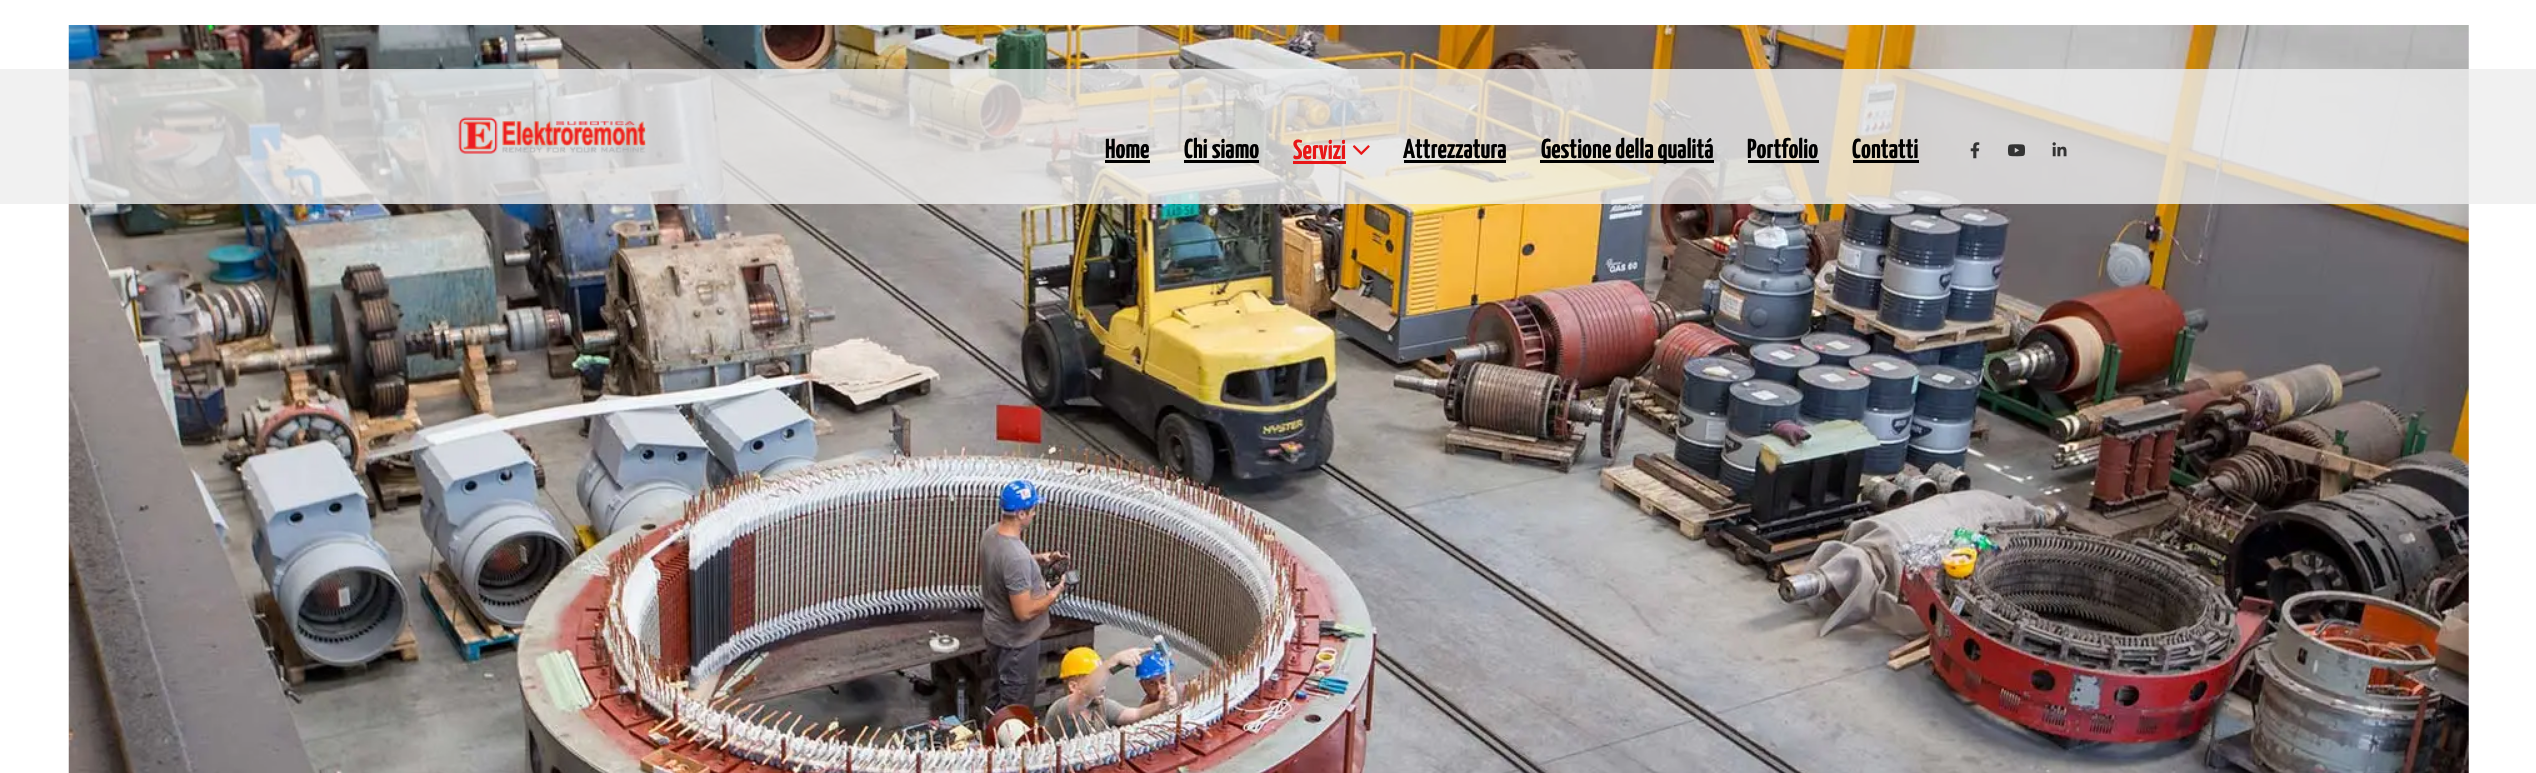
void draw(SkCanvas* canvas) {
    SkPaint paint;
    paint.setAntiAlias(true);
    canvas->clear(0xFFFFFFFF);
    canvas->drawImageRect(SkImages::DeferredFromEncodedData(SkData::MakeFromFileName("img1.png")), SkRect::MakeXYWH(68, 25, 2401, 748), SkSamplingOptions());
    paint.setColor(0xCCEDEDED);
    canvas->drawRect(SkRect::MakeXYWH(0, 69, 2536, 135), paint);
    canvas->drawImageRect(SkImages::DeferredFromEncodedData(SkData::MakeFromFileName("img2.png")), SkRect::MakeXYWH(458, 117, 188, 37), SkSamplingOptions());
    SkFont font1(fontMgr->matchFamilyStyle("Yanone Kaffeesatz", SkFontStyle::Bold()), 27.5f);
    font1.setSubpixel(true);
    paint.setColor(0xFF000000);
    canvas->drawString("Home", 1105, 158, font1, paint);
    canvas->drawRect(SkRect::MakeXYWH(1105, 160, 45, 3), paint);
    canvas->drawString("Chi siamo", 1184, 158, font1, paint);
    canvas->drawRect(SkRect::MakeXYWH(1184, 160, 75, 3), paint);
    paint.setColor(0xFFE81617);
    canvas->drawString("Servizi", 1293, 159, font1, paint);
    canvas->drawRect(SkRect::MakeXYWH(1293, 161, 53, 3), paint);
    canvas->drawImageRect(SkImages::DeferredFromEncodedData(SkData::MakeFromFileName("img3.png")), SkRect::MakeXYWH(1352, 145, 18, 10), SkSamplingOptions());
    paint.setColor(0xFF000000);
    canvas->drawString("Attrezzatura", 1403, 158, font1, paint);
    canvas->drawRect(SkRect::MakeXYWH(1404, 160, 102, 3), paint);
    canvas->drawRect(SkRect::MakeXYWH(1540, 160, 174, 3), paint);
    canvas->drawString("Gestione della qualitá", 1541, 158, font1, paint);
    canvas->drawString("Portfolio", 1747, 158, font1, paint);
    canvas->drawRect(SkRect::MakeXYWH(1748, 160, 71, 3), paint);
    canvas->drawString("Contatti", 1852, 158, font1, paint);
    canvas->drawRect(SkRect::MakeXYWH(1853, 160, 66, 3), paint);
    canvas->drawImageRect(SkImages::DeferredFromEncodedData(SkData::MakeFromFileName("img4.png")), SkRect::MakeXYWH(1970, 142, 10, 17), SkSamplingOptions());
    canvas->drawImageRect(SkImages::DeferredFromEncodedData(SkData::MakeFromFileName("img5.png")), SkRect::MakeXYWH(2007, 144, 18, 13), SkSamplingOptions());
    canvas->drawImageRect(SkImages::DeferredFromEncodedData(SkData::MakeFromFileName("img6.png")), SkRect::MakeXYWH(2052, 142, 15, 15), SkSamplingOptions());
}
